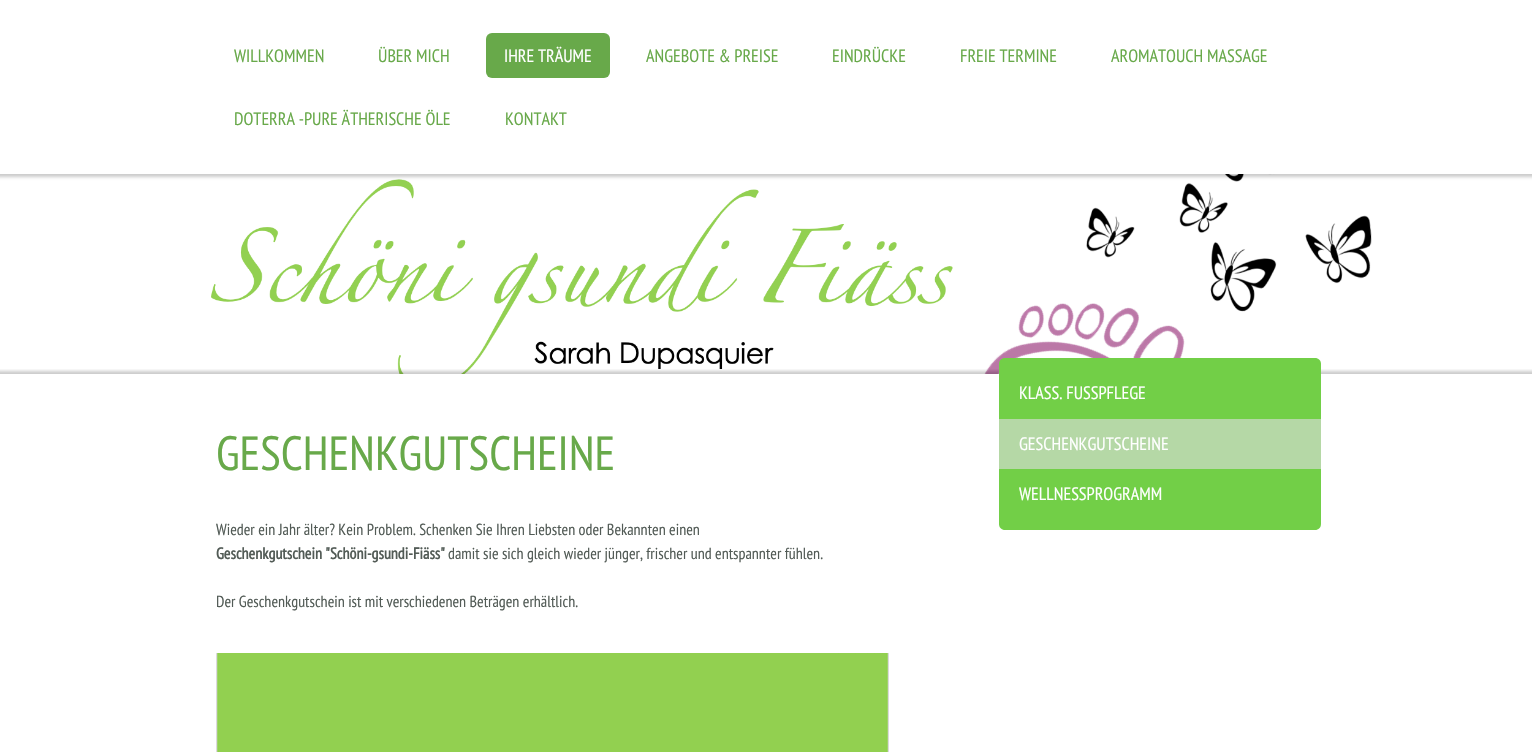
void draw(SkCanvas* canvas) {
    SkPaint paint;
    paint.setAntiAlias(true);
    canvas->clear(0xFFFFFFFF);
    canvas->drawImageRect(SkImages::DeferredFromEncodedData(SkData::MakeFromFileName("img1.png")), SkRect::MakeXYWH(211, 174, 1161, 200), SkSamplingOptions());
    paint.setColor(0x33000000);
    paint.setMaskFilter(SkMaskFilter::MakeBlur(kNormal_SkBlurStyle, 1.5f));
    canvas->drawRect(SkRect::MakeXYWH(-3, -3, 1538, 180), paint);
    paint.setMaskFilter(nullptr);
    paint.setColor(0xFFFFFFFF);
    canvas->drawRect(SkRect::MakeXYWH(0, 0, 1532, 174), paint);
    SkFont font1(fontMgr->matchFamilyStyle("PT Sans Narrow", SkFontStyle::Normal()), 18);
    font1.setSubpixel(true);
    paint.setColor(0xFF68A94A);
    canvas->drawString("WILLKOMMEN", 234, 62, font1, paint);
    canvas->drawString("ÜBER MICH", 378, 62, font1, paint);
    canvas->drawRoundRect(SkRect::MakeXYWH(486, 33, 124, 45), 6, 6, paint);
    paint.setColor(0xFFFFFFFF);
    canvas->drawString("IHRE TRÄUME", 504, 62, font1, paint);
    paint.setColor(0xFF68A94A);
    canvas->drawString("ANGEBOTE & PREISE", 646, 62, font1, paint);
    canvas->drawString("EINDRÜCKE", 832, 62, font1, paint);
    canvas->drawString("FREIE TERMINE", 960, 62, font1, paint);
    canvas->drawString("AROMATOUCH MASSAGE", 1111, 62, font1, paint);
    canvas->drawString("DOTERRA -PURE ÄTHERISCHE ÖLE", 234, 125, font1, paint);
    canvas->drawString("KONTAKT", 505, 125, font1, paint);
    canvas->save();
    canvas->clipRect(SkRect::MakeXYWH(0, 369, 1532, 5));
    paint.setColor(0x33000000);
    paint.setMaskFilter(SkMaskFilter::MakeBlur(kNormal_SkBlurStyle, 1.5f));
    canvas->drawRect(SkRect::MakeXYWH(-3, 371, 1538, 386), paint);
    paint.setMaskFilter(nullptr);
    canvas->restore();
    SkFont font2(fontMgr->matchFamilyStyle("PT Sans Narrow", SkFontStyle::Normal()), 48);
    font2.setSubpixel(true);
    paint.setColor(0xFF68A94A);
    canvas->drawString("GESCHENKGUTSCHEINE", 216, 470, font2, paint);
    SkFont font3(fontMgr->matchFamilyStyle("PT Sans Narrow", SkFontStyle::Normal()), 16);
    font3.setSubpixel(true);
    paint.setColor(0xFF525B56);
    canvas->drawString("Wieder ein Jahr älter? Kein Problem. Schenken Sie Ihren Liebsten oder Bekannten einen", 216, 535, font3, paint);
    SkFont font4(fontMgr->matchFamilyStyle("PT Sans Narrow", SkFontStyle::Bold()), 16);
    font4.setSubpixel(true);
    canvas->drawString("Geschenkgutschein \"Schöni-gsundi-Fiäss\"", 216, 559, font4, paint);
    canvas->drawString("damit sie sich gleich wieder jünger, frischer und entspannter fühlen.", 448, 559, font3, paint);
    canvas->drawString("Der Geschenkgutschein ist mit verschiedenen Beträgen erhältlich.", 216, 607, font3, paint);
    canvas->drawImageRect(SkImages::DeferredFromEncodedData(SkData::MakeFromFileName("img2.png")), SkRect::MakeXYWH(216, 653, 673, 99), SkSamplingOptions());
    paint.setColor(0xFF72CF47);
    canvas->drawPath(SkPathBuilder().moveTo(1005, 358).lineTo(1315, 358).cubicTo(1318.5f, 358, 1321, 360.5f, 1321, 364).lineTo(1321, 419).lineTo(999, 419).lineTo(999, 364).cubicTo(999, 360.5f, 1001.5f, 358, 1005, 358).close().detach(), paint);
    paint.setColor(0xFFFFFFFF);
    canvas->drawString("KLASS. FUSSPFLEGE", 1019, 399, font1, paint);
    paint.setColor(0xFFB5D8A6);
    canvas->drawRect(SkRect::MakeXYWH(999, 419, 322, 50), paint);
    paint.setColor(0xFFFFFFFF);
    canvas->drawString("GESCHENKGUTSCHEINE", 1019, 450, font1, paint);
    paint.setColor(0xFF72CF47);
    canvas->drawPath(SkPathBuilder().moveTo(999, 469).lineTo(1321, 469).lineTo(1321, 524).cubicTo(1321, 527.5f, 1318.5f, 530, 1315, 530).lineTo(1005, 530).cubicTo(1001.5f, 530, 999, 527.5f, 999, 524).close().detach(), paint);
    paint.setColor(0xFFFFFFFF);
    canvas->drawString("WELLNESSPROGRAMM", 1019, 500, font1, paint);
}
